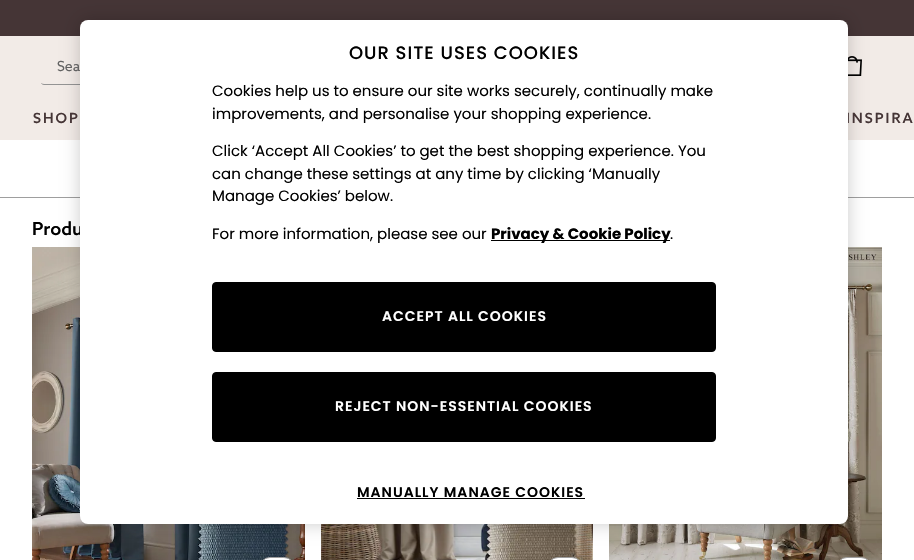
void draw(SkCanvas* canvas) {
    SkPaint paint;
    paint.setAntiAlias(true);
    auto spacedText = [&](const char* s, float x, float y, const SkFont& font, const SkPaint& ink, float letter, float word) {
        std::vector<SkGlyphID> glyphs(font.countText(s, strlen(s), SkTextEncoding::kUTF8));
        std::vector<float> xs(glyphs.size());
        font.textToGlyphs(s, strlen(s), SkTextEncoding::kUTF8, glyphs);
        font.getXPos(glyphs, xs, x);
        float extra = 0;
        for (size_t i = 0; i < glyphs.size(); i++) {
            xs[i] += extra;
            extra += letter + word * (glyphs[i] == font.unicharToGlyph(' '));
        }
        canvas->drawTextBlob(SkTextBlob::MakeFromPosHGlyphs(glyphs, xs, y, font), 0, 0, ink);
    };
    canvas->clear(0xFFFFFFFF);
    paint.setColor(0xFF453536);
    canvas->drawRect(SkRect::MakeXYWH(0, 0, 914, 36), paint);
    paint.setColor(0xFFF2EBE7);
    canvas->drawRect(SkRect::MakeXYWH(0, 36, 914, 104), paint);
    paint.setStyle(SkPaint::kStroke_Style);
    paint.setStrokeWidth(1);
    paint.setColor(0xFF949494);
    canvas->drawPath(SkPathBuilder().moveTo(240.5f, 83.5f).cubicTo(240, 84, 239, 84.5f, 238, 84.5f).lineTo(44, 84.5f).cubicTo(43, 84.5f, 42, 84, 41.5f, 83.5f).detach(), paint);
    canvas->drawImageRect(SkImages::DeferredFromEncodedData(SkData::MakeFromFileName("img1.png")), SkRect::MakeXYWH(848, 56, 14, 20), SkSamplingOptions());
    paint.setStyle(SkPaint::kFill_Style);
    paint.setColor(0xFF9E9E9E);
    canvas->drawRect(SkRect::MakeXYWH(0, 197, 914, 1), paint);
    canvas->drawImageRect(SkImages::DeferredFromEncodedData(SkData::MakeFromFileName("img2.png")), SkRect::MakeXYWH(32, 247, 273, 313), SkSamplingOptions());
    canvas->drawImageRect(SkImages::DeferredFromEncodedData(SkData::MakeFromFileName("img3.png")), SkRect::MakeXYWH(321, 524, 272, 36), SkSamplingOptions());
    canvas->drawImageRect(SkImages::DeferredFromEncodedData(SkData::MakeFromFileName("img4.png")), SkRect::MakeXYWH(609, 247, 273, 313), SkSamplingOptions());
    paint.setColor(0x33000000);
    paint.setMaskFilter(SkMaskFilter::MakeBlur(kNormal_SkBlurStyle, 9));
    canvas->drawRoundRect(SkRect::MakeXYWH(80, 20, 768, 504), 8, 8, paint);
    paint.setMaskFilter(nullptr);
    SkFont font1(fontMgr->matchFamilyStyle("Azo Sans", SkFontStyle(600, SkFontStyle::kNormal_Width, SkFontStyle::kUpright_Slant)), 14);
    font1.setSubpixel(true);
    paint.setColor(0xFF453536);
    spacedText("INSPIRA", 846, 123, font1, paint, 2, 0);
    SkFont font2(fontMgr->matchFamilyStyle("Azo Sans", SkFontStyle(600, SkFontStyle::kNormal_Width, SkFontStyle::kUpright_Slant)), 18);
    font2.setSubpixel(true);
    paint.setColor(0xFF000000);
    canvas->drawString("Produ", 32, 235, font2, paint);
    paint.setColor(0xFFFFFFFF);
    canvas->drawRoundRect(SkRect::MakeXYWH(80, 20, 768, 504), 8, 8, paint);
    SkFont font3(fontMgr->matchFamilyStyle("Poppins", SkFontStyle(500, SkFontStyle::kNormal_Width, SkFontStyle::kUpright_Slant)), 18);
    font3.setSubpixel(true);
    paint.setColor(0xFF000000);
    spacedText("OUR SITE USES COOKIES", 349, 59, font3, paint, 1, 0);
    SkFont font4(fontMgr->matchFamilyStyle("Poppins", SkFontStyle::Normal()), 15);
    font4.setSubpixel(true);
    canvas->drawString("Cookies help us to ensure our site works securely, continually make", 212, 96, font4, paint);
    canvas->drawString("improvements, and personalise your shopping experience.", 212, 119, font4, paint);
    canvas->drawString("Click ‘Accept All Cookies’ to get the best shopping experience. You", 212, 156, font4, paint);
    canvas->drawString("can change these settings at any time by clicking ‘Manually", 212, 179, font4, paint);
    canvas->drawString("Manage Cookies’ below.", 212, 201, font4, paint);
    canvas->drawString("For more information, please see our", 212, 239, font4, paint);
    canvas->drawRect(SkRect::MakeXYWH(491, 240, 179, 1), paint);
    SkFont font5(fontMgr->matchFamilyStyle("Poppins", SkFontStyle::Bold()), 15);
    font5.setSubpixel(true);
    canvas->drawString("Privacy & Cookie Policy", 491, 239, font5, paint);
    canvas->drawString(".", 670, 239, font4, paint);
    canvas->drawRoundRect(SkRect::MakeXYWH(212.5f, 282.5f, 503, 69), 3.5f, 3.5f, paint);
    paint.setStyle(SkPaint::kStroke_Style);
    canvas->drawRoundRect(SkRect::MakeXYWH(212.5f, 282.5f, 503, 69), 3.5f, 3.5f, paint);
    SkFont font6(fontMgr->matchFamilyStyle("Poppins", SkFontStyle(600, SkFontStyle::kNormal_Width, SkFontStyle::kUpright_Slant)), 14);
    font6.setSubpixel(true);
    paint.setStyle(SkPaint::kFill_Style);
    paint.setColor(0xFFFFFFFF);
    spacedText("ACCEPT ALL COOKIES", 382, 321, font6, paint, 1, 0);
    paint.setColor(0xFF000000);
    canvas->drawRoundRect(SkRect::MakeXYWH(212.5f, 372.5f, 503, 69), 3.5f, 3.5f, paint);
    paint.setStyle(SkPaint::kStroke_Style);
    canvas->drawRoundRect(SkRect::MakeXYWH(212.5f, 372.5f, 503, 69), 3.5f, 3.5f, paint);
    paint.setStyle(SkPaint::kFill_Style);
    paint.setColor(0xFFFFFFFF);
    spacedText("REJECT NON-ESSENTIAL COOKIES", 335, 411, font6, paint, 1, 0);
    paint.setColor(0xFF000000);
    spacedText("MANUALLY MANAGE COOKIES", 357, 497, font6, paint, 1, 0);
    canvas->drawRect(SkRect::MakeXYWH(357, 498, 228, 1), paint);
    SkFont font7(fontMgr->matchFamilyStyle("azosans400", SkFontStyle::Normal()), 14);
    font7.setSubpixel(true);
    paint.setColor(0xFF616161);
    canvas->drawString("Sea", 57, 71, font7, paint);
    paint.setColor(0xFF453536);
    spacedText("SHOP", 33, 123, font1, paint, 2, 0);
    paint.setColor(0xFFFFFFFF);
    canvas->drawRoundRect(SkRect::MakeXYWH(259.5f, 557.5f, 35, 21), 17.5f, 17.5f, paint);
    paint.setStyle(SkPaint::kStroke_Style);
    paint.setColor(0xFF9E9E9E);
    canvas->drawRoundRect(SkRect::MakeXYWH(259.5f, 557.5f, 35, 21), 17.5f, 17.5f, paint);
    paint.setStyle(SkPaint::kFill_Style);
    paint.setColor(0xFFFFFFFF);
    canvas->drawRoundRect(SkRect::MakeXYWH(547.5f, 557.5f, 35, 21), 17.5f, 17.5f, paint);
    paint.setStyle(SkPaint::kStroke_Style);
    paint.setColor(0xFF9E9E9E);
    canvas->drawRoundRect(SkRect::MakeXYWH(547.5f, 557.5f, 35, 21), 17.5f, 17.5f, paint);
    paint.setStyle(SkPaint::kFill_Style);
    paint.setColor(0xFFFFFFFF);
    canvas->drawRoundRect(SkRect::MakeXYWH(836.5f, 557.5f, 35, 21), 17.5f, 17.5f, paint);
    paint.setStyle(SkPaint::kStroke_Style);
    paint.setColor(0xFF9E9E9E);
    canvas->drawRoundRect(SkRect::MakeXYWH(836.5f, 557.5f, 35, 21), 17.5f, 17.5f, paint);
}
